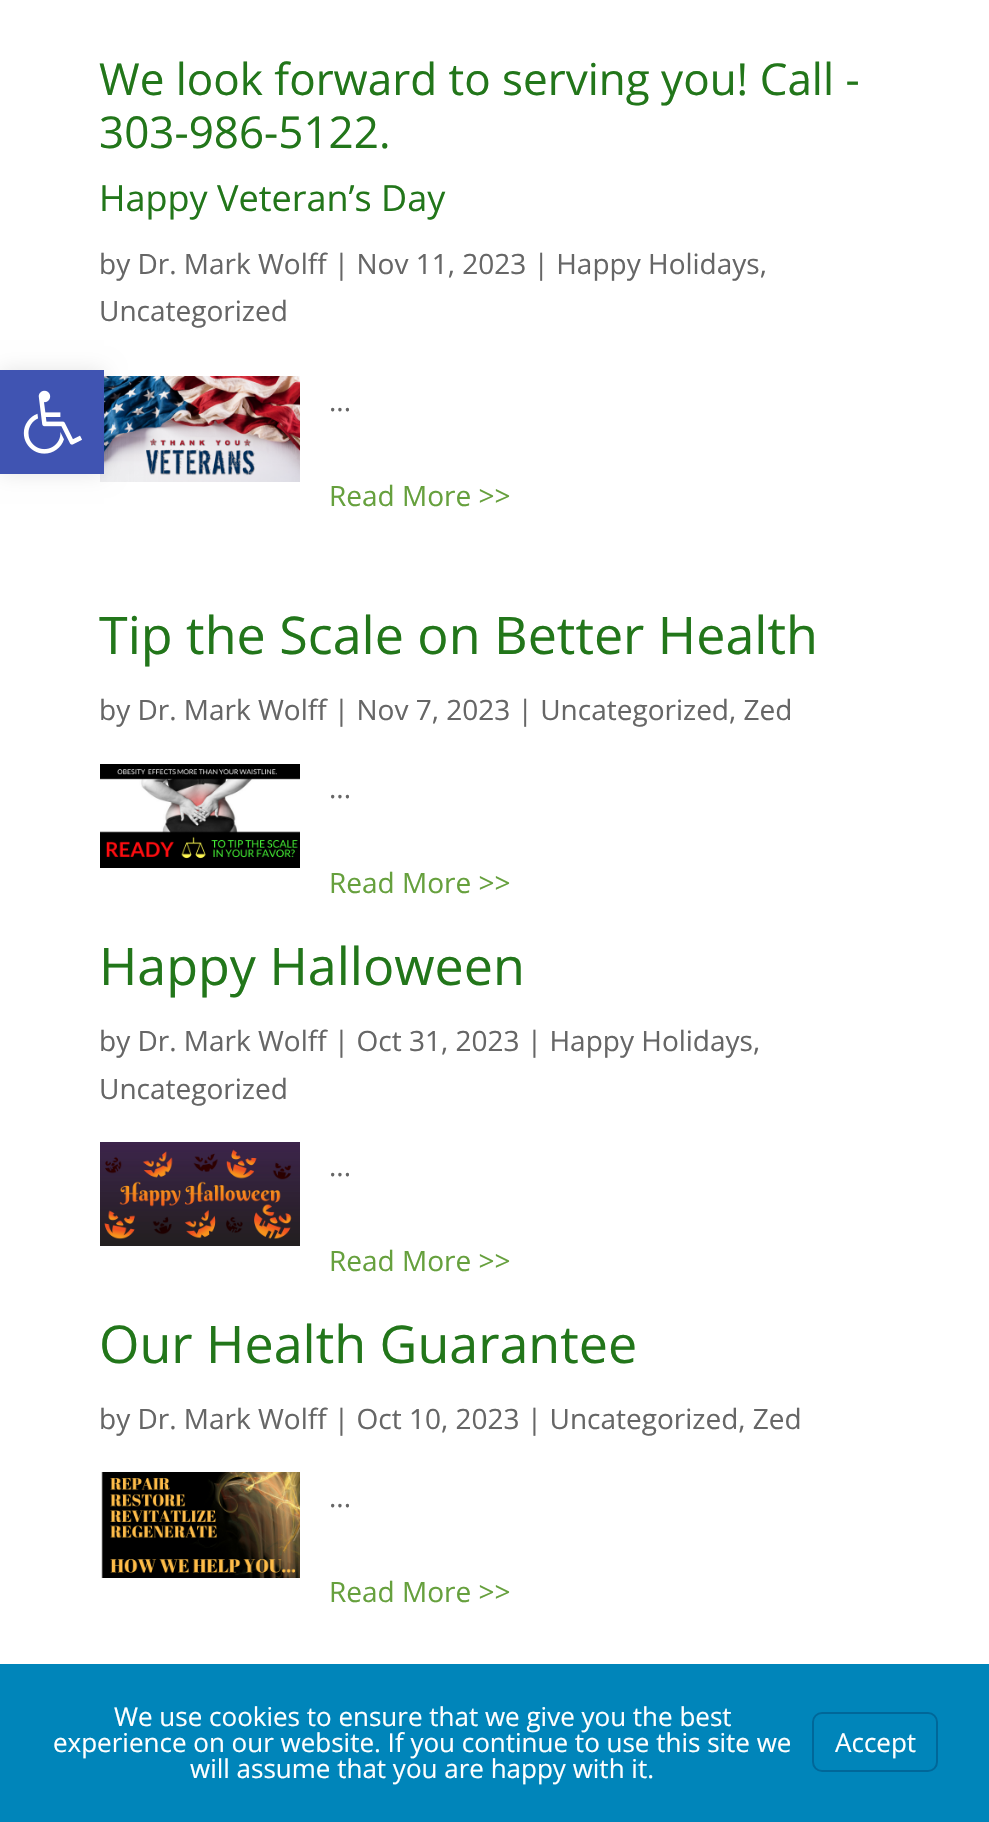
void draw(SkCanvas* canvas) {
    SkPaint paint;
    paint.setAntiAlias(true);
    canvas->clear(0xFFFFFFFF);
    canvas->drawImageRect(SkImages::DeferredFromEncodedData(SkData::MakeFromFileName("img2.png")), SkRect::MakeXYWH(100, 376, 200, 106), SkSamplingOptions());
    paint.setColor(0x1A000000);
    paint.setMaskFilter(SkMaskFilter::MakeBlur(kNormal_SkBlurStyle, 10));
    canvas->drawRect(SkRect::MakeXYWH(0, 370, 104, 104), paint);
    paint.setMaskFilter(nullptr);
    paint.setColor(0xFF4054B2);
    canvas->drawRect(SkRect::MakeXYWH(0, 370, 104, 104), paint);
    canvas->drawImageRect(SkImages::DeferredFromEncodedData(SkData::MakeFromFileName("img1.png")), SkRect::MakeXYWH(23, 390, 59, 64), SkSamplingOptions());
    SkFont font1(fontMgr->matchFamilyStyle("Open Sans", SkFontStyle::Normal()), 44);
    font1.setSubpixel(true);
    paint.setColor(0xFF22761A);
    canvas->drawString("We look forward to serving you! Call -", 99, 95, font1, paint);
    canvas->drawString("303-986-5122.", 99, 148, font1, paint);
    SkFont font2(fontMgr->matchFamilyStyle("Open Sans", SkFontStyle::Normal()), 36);
    font2.setSubpixel(true);
    canvas->drawString("Happy Veteran’s Day", 99, 211, font2, paint);
    SkFont font3(fontMgr->matchFamilyStyle("Open Sans", SkFontStyle::Normal()), 28);
    font3.setSubpixel(true);
    paint.setColor(0xFF666666);
    canvas->drawString("by Dr. Mark Wolff | Nov 11, 2023 | Happy Holidays,", 99, 274, font3, paint);
    canvas->drawString("Uncategorized", 99, 321, font3, paint);
    canvas->drawString("...", 329, 411, font3, paint);
    paint.setColor(0xFF66A03D);
    canvas->drawString("Read More >>", 329, 506, font3, paint);
    SkFont font4(fontMgr->matchFamilyStyle("Open Sans", SkFontStyle::Normal()), 52);
    font4.setSubpixel(true);
    paint.setColor(0xFF22761A);
    canvas->drawString("Tip the Scale on Better Health", 99, 654, font4, paint);
    paint.setColor(0xFF666666);
    canvas->drawString("by Dr. Mark Wolff | Nov 7, 2023 | Uncategorized, Zed", 99, 720, font3, paint);
    canvas->drawImageRect(SkImages::DeferredFromEncodedData(SkData::MakeFromFileName("img3.png")), SkRect::MakeXYWH(100, 764, 200, 104), SkSamplingOptions());
    canvas->drawString("...", 329, 798, font3, paint);
    paint.setColor(0xFF66A03D);
    canvas->drawString("Read More >>", 329, 893, font3, paint);
    paint.setColor(0xFF22761A);
    canvas->drawString("Happy Halloween", 99, 985, font4, paint);
    paint.setColor(0xFF666666);
    canvas->drawString("by Dr. Mark Wolff | Oct 31, 2023 | Happy Holidays,", 99, 1051, font3, paint);
    canvas->drawString("Uncategorized", 99, 1099, font3, paint);
    canvas->drawImageRect(SkImages::DeferredFromEncodedData(SkData::MakeFromFileName("img4.png")), SkRect::MakeXYWH(100, 1142, 200, 104), SkSamplingOptions());
    canvas->drawString("...", 329, 1176, font3, paint);
    paint.setColor(0xFF66A03D);
    canvas->drawString("Read More >>", 329, 1271, font3, paint);
    paint.setColor(0xFF22761A);
    canvas->drawString("Our Health Guarantee", 99, 1363, font4, paint);
    paint.setColor(0xFF666666);
    canvas->drawString("by Dr. Mark Wolff | Oct 10, 2023 | Uncategorized, Zed", 99, 1429, font3, paint);
    canvas->drawImageRect(SkImages::DeferredFromEncodedData(SkData::MakeFromFileName("img5.png")), SkRect::MakeXYWH(101, 1472, 199, 106), SkSamplingOptions());
    canvas->drawString("...", 329, 1507, font3, paint);
    paint.setColor(0xFF66A03D);
    canvas->drawString("Read More >>", 329, 1602, font3, paint);
    paint.setColor(0xFF0085BA);
    canvas->drawRect(SkRect::MakeXYWH(0, 1664, 989, 158), paint);
    SkFont font5(fontMgr->matchFamilyStyle("Open Sans", SkFontStyle::Normal()), 26);
    font5.setSubpixel(true);
    paint.setColor(0xFFFFFFFF);
    canvas->drawString("We use cookies to ensure that we give you the best", 114, 1726, font5, paint);
    canvas->drawString("experience on our website. If you continue to use this site we", 53, 1752, font5, paint);
    canvas->drawString("will assume that you are happy with it.", 190, 1778, font5, paint);
    paint.setStyle(SkPaint::kStroke_Style);
    paint.setStrokeWidth(2);
    paint.setColor(0xFF006799);
    canvas->drawRoundRect(SkRect::MakeXYWH(813, 1713, 124, 58), 9, 9, paint);
    paint.setStyle(SkPaint::kFill_Style);
    paint.setColor(0xFFFFFFFF);
    canvas->drawString("Accept", 835, 1752, font5, paint);
}
